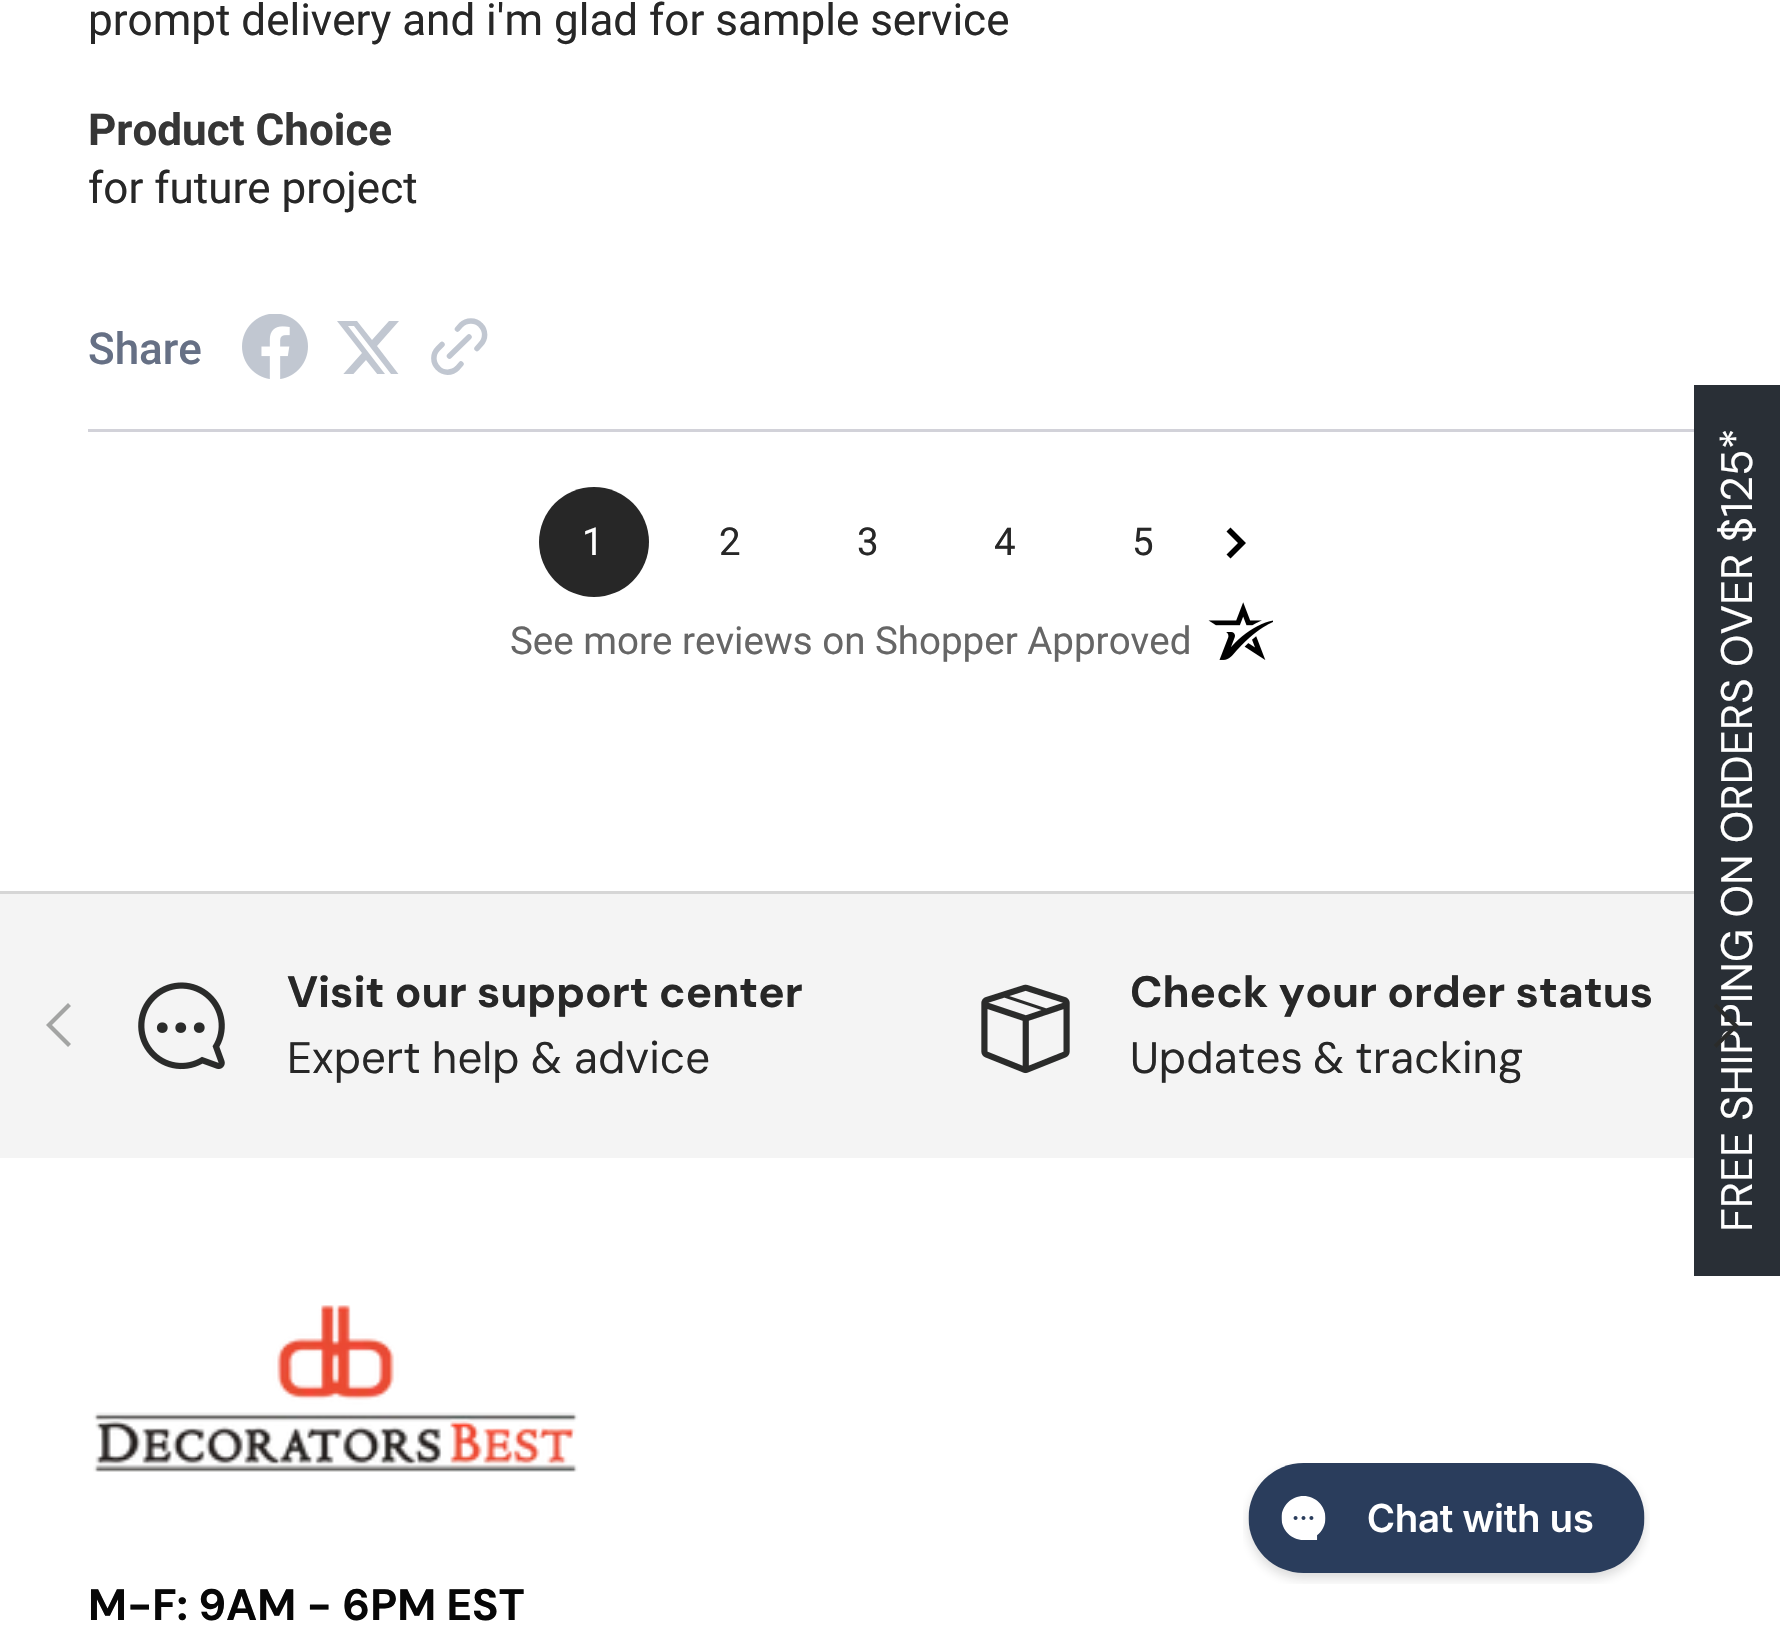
void draw(SkCanvas* canvas) {
    SkPaint paint;
    paint.setAntiAlias(true);
    auto spacedText = [&](const char* s, float x, float y, const SkFont& font, const SkPaint& ink, float letter, float word) {
        std::vector<SkGlyphID> glyphs(font.countText(s, strlen(s), SkTextEncoding::kUTF8));
        std::vector<float> xs(glyphs.size());
        font.textToGlyphs(s, strlen(s), SkTextEncoding::kUTF8, glyphs);
        font.getXPos(glyphs, xs, x);
        float extra = 0;
        for (size_t i = 0; i < glyphs.size(); i++) {
            xs[i] += extra;
            extra += letter + word * (glyphs[i] == font.unicharToGlyph(' '));
        }
        canvas->drawTextBlob(SkTextBlob::MakeFromPosHGlyphs(glyphs, xs, y, font), 0, 0, ink);
    };
    canvas->clear(0xFFFFFFFF);
    paint.setColor(0xFFD2D2D9);
    canvas->drawRect(SkRect::MakeXYWH(88, 429, 1606, 3), paint);
    SkFont font1(fontMgr->matchFamilyStyle("Roboto", SkFontStyle::Normal()), 44);
    font1.setSubpixel(true);
    paint.setColor(0xFF272727);
    canvas->drawString("prompt delivery and i'm glad for sample service", 88, 35, font1, paint);
    SkFont font2(fontMgr->matchFamilyStyle("Roboto", SkFontStyle::Bold()), 44);
    font2.setSubpixel(true);
    paint.setColor(0xFF363636);
    canvas->drawString("Product Choice", 88, 145, font2, paint);
    paint.setColor(0xFF272727);
    canvas->drawString("for future project", 88, 203, font1, paint);
    SkFont font3(fontMgr->matchFamilyStyle("Roboto", SkFontStyle(500, SkFontStyle::kNormal_Width, SkFontStyle::kUpright_Slant)), 44);
    font3.setSubpixel(true);
    paint.setColor(0xFF667085);
    canvas->drawString("Share", 88, 364, font3, paint);
    canvas->drawImageRect(SkImages::DeferredFromEncodedData(SkData::MakeFromFileName("img1.png")), SkRect::MakeXYWH(242, 314, 66, 65), SkSamplingOptions());
    canvas->save();
    canvas->clipRect(SkRect::MakeXYWH(336, 319, 66, 55));
    paint.setColor(0xFFC1C7D1);
    canvas->drawPath(SkPathBuilder().moveTo(389, 321).lineTo(399, 321).lineTo(377, 346).lineTo(403, 380).lineTo(382, 380).lineTo(366, 360).lineTo(348, 380).lineTo(338, 380).lineTo(362, 353).lineTo(337, 321).lineTo(357, 321).lineTo(372, 340).close().moveTo(385, 374).lineTo(391, 374).lineTo(354, 326).lineTo(348, 326).close().detach(), paint);
    canvas->restore();
    paint.setStyle(SkPaint::kStroke_Style);
    paint.setStrokeWidth(5.5f);
    paint.setStrokeCap(SkPaint::kRound_Cap);
    paint.setStrokeJoin(SkPaint::kRound_Join);
    canvas->drawPath(SkPathBuilder().moveTo(461, 364).lineTo(457.5f, 368).cubicTo(452, 373.5f, 443, 373.5f, 438, 368).cubicTo(432.5f, 362.5f, 432.5f, 354, 438, 348.5f).lineTo(442, 344.5f).moveTo(477, 348.5f).lineTo(480.5f, 344.5f).cubicTo(486, 339, 486, 330.5f, 480.5f, 325).cubicTo(475.5f, 319.5f, 466.5f, 319.5f, 461, 325).lineTo(457.5f, 329).moveTo(449.5f, 356).lineTo(469, 337).detach(), paint);
    paint.setStyle(SkPaint::kFill_Style);
    paint.setColor(0xFF272727);
    canvas->drawCircle(594, 542, 55, paint);
    SkFont font4(fontMgr->matchFamilyStyle("Roboto", SkFontStyle::Normal()), 38.5f);
    font4.setSubpixel(true);
    paint.setColor(0xFFFFFFFF);
    canvas->drawString("1", 582, 555, font4, paint);
    paint.setColor(0xFF272727);
    canvas->drawString("2", 719, 555, font4, paint);
    canvas->drawString("3", 857, 555, font4, paint);
    canvas->drawString("4", 994, 555, font4, paint);
    canvas->drawString("5", 1132, 555, font4, paint);
    paint.setColor(0xFF000000);
    canvas->drawPath(SkPathBuilder().moveTo(1230.5f, 527.5f).lineTo(1226.5f, 531.5f).lineTo(1238, 543).lineTo(1226.5f, 554.5f).lineTo(1230.5f, 558.5f).lineTo(1246, 543).close().detach(), paint);
    paint.setColor(0xFF666666);
    canvas->drawString("See more reviews on Shopper Approved", 510, 654, font4, paint);
    canvas->drawImageRect(SkImages::DeferredFromEncodedData(SkData::MakeFromFileName("img2.png")), SkRect::MakeXYWH(1208, 602, 65, 58), SkSamplingOptions());
    paint.setColor(0xFF292F36);
    canvas->drawRect(SkRect::MakeXYWH(1694, 385, 86, 891), paint);
    SkFont font5(fontMgr->matchFamilyStyle("DM Sans", SkFontStyle::Normal()), 44);
    font5.setSubpixel(true);
    paint.setColor(0xFFFFFFFF);
    canvas->save();
    canvas->rotate(-90, 1752, 1232);
    spacedText("FREE SHIPPING ON ORDERS OVER $125*", 1752, 1232, font5, paint, 0, -1);
    canvas->restore();
    paint.setColor(0xFFF4F4F4);
    canvas->drawRect(SkRect::MakeXYWH(0, 894, 1694, 264), paint);
    paint.setColor(0xFFD6D6D6);
    canvas->drawRect(SkRect::MakeXYWH(0, 891, 1694, 3), paint);
    canvas->drawImageRect(SkImages::DeferredFromEncodedData(SkData::MakeFromFileName("img3.png")), SkRect::MakeXYWH(138, 982, 87, 88), SkSamplingOptions());
    SkFont font6(fontMgr->matchFamilyStyle("DM Sans", SkFontStyle::Bold()), 44);
    font6.setSubpixel(true);
    paint.setColor(0xFF272727);
    canvas->drawString("Visit our support center", 287, 1007, font6, paint);
    spacedText("Expert help & advice", 287, 1073, font5, paint, 0, -1);
    canvas->drawImageRect(SkImages::DeferredFromEncodedData(SkData::MakeFromFileName("img4.png")), SkRect::MakeXYWH(981, 984, 89, 90), SkSamplingOptions());
    canvas->drawString("Check your order status", 1130, 1007, font6, paint);
    spacedText("Updates & tracking", 1130, 1073, font5, paint, 0, -2);
    paint.setColor(0xFFA3A4A3);
    canvas->drawPath(SkPathBuilder().moveTo(46, 1025).lineTo(68, 1003).lineTo(71, 1006).lineTo(52, 1025).lineTo(71, 1044).lineTo(68, 1047).close().detach(), paint);
    paint.setStyle(SkPaint::kStroke_Style);
    paint.setStrokeWidth(4.1f);
    paint.setStrokeCap(SkPaint::kButt_Cap);
    paint.setStrokeJoin(SkPaint::kMiter_Join);
    paint.setColor(0xFF2A2B2A);
    canvas->drawPath(SkPathBuilder().moveTo(1715, 1005).lineTo(1736, 1026).lineTo(1715, 1046.5f).detach(), paint);
    canvas->drawImageRect(SkImages::DeferredFromEncodedData(SkData::MakeFromFileName("img5.png")), SkRect::MakeXYWH(1243, 1463, 407, 121), SkSamplingOptions());
    canvas->drawImageRect(SkImages::DeferredFromEncodedData(SkData::MakeFromFileName("img6.png")), SkRect::MakeXYWH(93, 1305, 485, 167), SkSamplingOptions());
    paint.setStyle(SkPaint::kFill_Style);
    paint.setColor(0xFF070707);
    canvas->drawString("M-F: 9AM - 6PM EST", 88, 1620, font6, paint);
}
